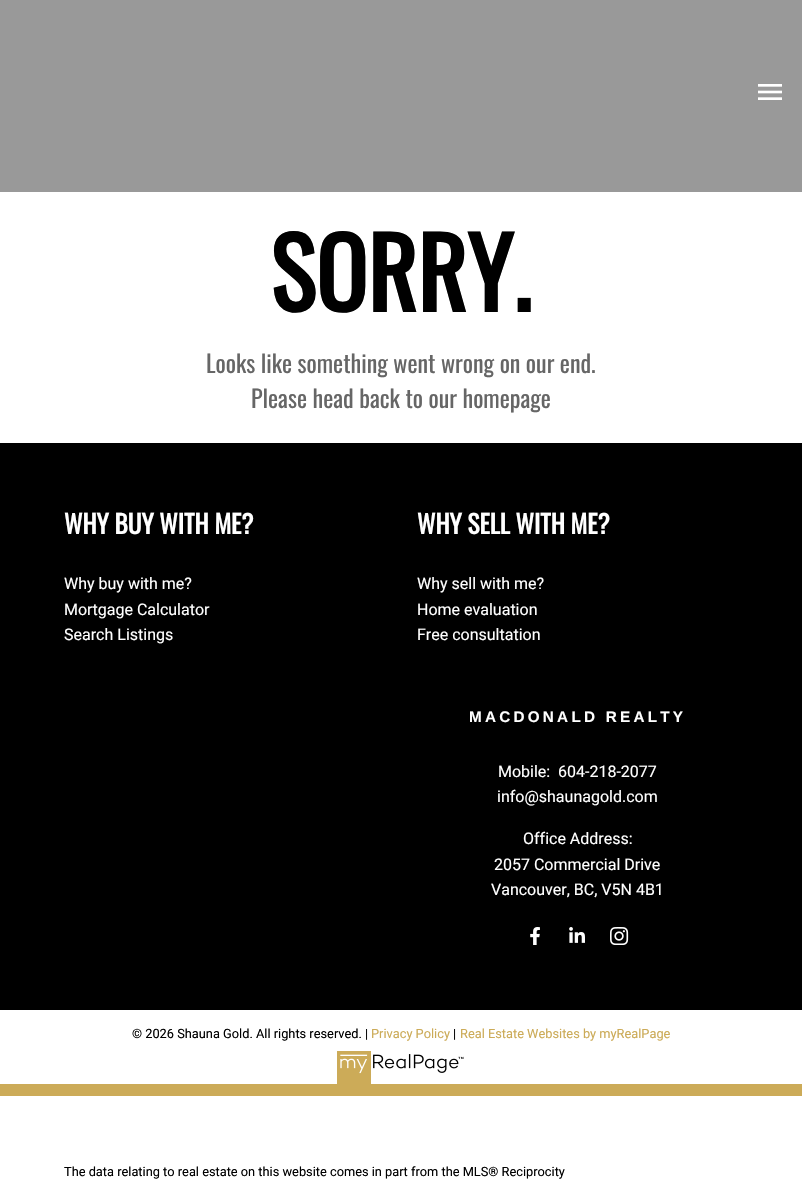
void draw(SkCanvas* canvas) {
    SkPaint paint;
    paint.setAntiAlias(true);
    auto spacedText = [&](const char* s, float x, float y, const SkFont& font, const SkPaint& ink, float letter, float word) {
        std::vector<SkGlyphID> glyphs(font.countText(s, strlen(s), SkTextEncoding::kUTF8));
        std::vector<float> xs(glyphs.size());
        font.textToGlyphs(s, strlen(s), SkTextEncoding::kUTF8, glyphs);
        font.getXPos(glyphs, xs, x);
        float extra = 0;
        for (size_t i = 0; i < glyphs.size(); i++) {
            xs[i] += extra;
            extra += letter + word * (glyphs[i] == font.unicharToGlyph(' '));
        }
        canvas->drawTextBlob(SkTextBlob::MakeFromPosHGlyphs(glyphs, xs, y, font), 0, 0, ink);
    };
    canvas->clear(0xFFFFFFFF);
    paint.setColor(0xFF999999);
    canvas->drawRect(SkRect::MakeXYWH(0, 0, 802, 192), paint);
    canvas->drawImageRect(SkImages::DeferredFromEncodedData(SkData::MakeFromFileName("img1.png")), SkRect::MakeXYWH(758, 84, 24, 16), SkSamplingOptions());
    SkFont font1(fontMgr->matchFamilyStyle("Oswald", SkFontStyle::Bold()), 96);
    font1.setSubpixel(true);
    paint.setColor(0xFF000000);
    canvas->drawString("SORRY.", 270, 312, font1, paint);
    SkFont font2(fontMgr->matchFamilyStyle("Oswald", SkFontStyle::Normal()), 24);
    font2.setSubpixel(true);
    paint.setColor(0xFF666666);
    canvas->drawString("Looks like something went wrong on our end.", 206, 373, font2, paint);
    canvas->drawString("Please head back to our homepage", 251, 408, font2, paint);
    paint.setColor(0xFF000000);
    canvas->drawRect(SkRect::MakeXYWH(0, 443, 802, 567), paint);
    SkFont font3(fontMgr->matchFamilyStyle("Oswald", SkFontStyle::Bold()), 25.25f);
    font3.setSubpixel(true);
    paint.setColor(0xFFFFFFFF);
    canvas->drawString("WHY BUY WITH ME?", 64, 534, font3, paint);
    SkFont font4(fontMgr->matchFamilyStyle("Roboto", SkFontStyle::Normal()), 16);
    font4.setSubpixel(true);
    canvas->drawString("Why buy with me?", 64, 589, font4, paint);
    canvas->drawString("Mortgage Calculator", 64, 615, font4, paint);
    canvas->drawString("Search Listings", 64, 640, font4, paint);
    canvas->drawString("WHY SELL WITH ME?", 417, 534, font3, paint);
    canvas->drawString("Why sell with me?", 417, 589, font4, paint);
    canvas->drawString("Home evaluation", 417, 615, font4, paint);
    canvas->drawString("Free consultation", 417, 640, font4, paint);
    SkFont font5(fontMgr->matchFamilyStyle("Liberation Sans", SkFontStyle::Bold()), 15.25f);
    font5.setSubpixel(true);
    spacedText("MACDONALD REALTY", 469, 722, font5, paint, 3.25f, 0);
    canvas->drawString("Mobile:", 498, 777, font4, paint);
    canvas->drawString("604-218-2077", 558, 777, font4, paint);
    canvas->drawString("info@shaunagold.com", 497, 802, font4, paint);
    canvas->drawString("Office Address:", 523, 844, font4, paint);
    canvas->drawString("2057 Commercial Drive", 494, 870, font4, paint);
    canvas->drawString("Vancouver, BC, V5N 4B1", 491, 895, font4, paint);
    canvas->drawImageRect(SkImages::DeferredFromEncodedData(SkData::MakeFromFileName("img2.png")), SkRect::MakeXYWH(530, 927, 10, 18), SkSamplingOptions());
    canvas->drawImageRect(SkImages::DeferredFromEncodedData(SkData::MakeFromFileName("img3.png")), SkRect::MakeXYWH(569, 927, 16, 16), SkSamplingOptions());
    canvas->drawImageRect(SkImages::DeferredFromEncodedData(SkData::MakeFromFileName("img4.png")), SkRect::MakeXYWH(610, 927, 19, 18), SkSamplingOptions());
    SkFont font6(fontMgr->matchFamilyStyle("Roboto", SkFontStyle::Normal()), 12.8f);
    font6.setSubpixel(true);
    paint.setColor(0xFF000000);
    canvas->drawString("© 2026 Shauna Gold. All rights reserved. |", 132, 1038, font6, paint);
    paint.setColor(0xFFCCAB58);
    canvas->drawString("Privacy Policy", 371, 1038, font6, paint);
    paint.setColor(0xFF000000);
    canvas->drawString("|", 453, 1038, font6, paint);
    paint.setColor(0xFFCCAB58);
    canvas->drawString("Real Estate Websites by myRealPage", 460, 1038, font6, paint);
    canvas->drawImageRect(SkImages::DeferredFromEncodedData(SkData::MakeFromFileName("img5.png")), SkRect::MakeXYWH(337, 1051, 127, 33), SkSamplingOptions());
    canvas->drawRect(SkRect::MakeXYWH(0, 1084, 802, 12), paint);
    paint.setColor(0xFF000000);
    canvas->drawString("The data relating to real estate on this website comes in part from the MLS® Reciprocity", 64, 1176, font6, paint);
}
